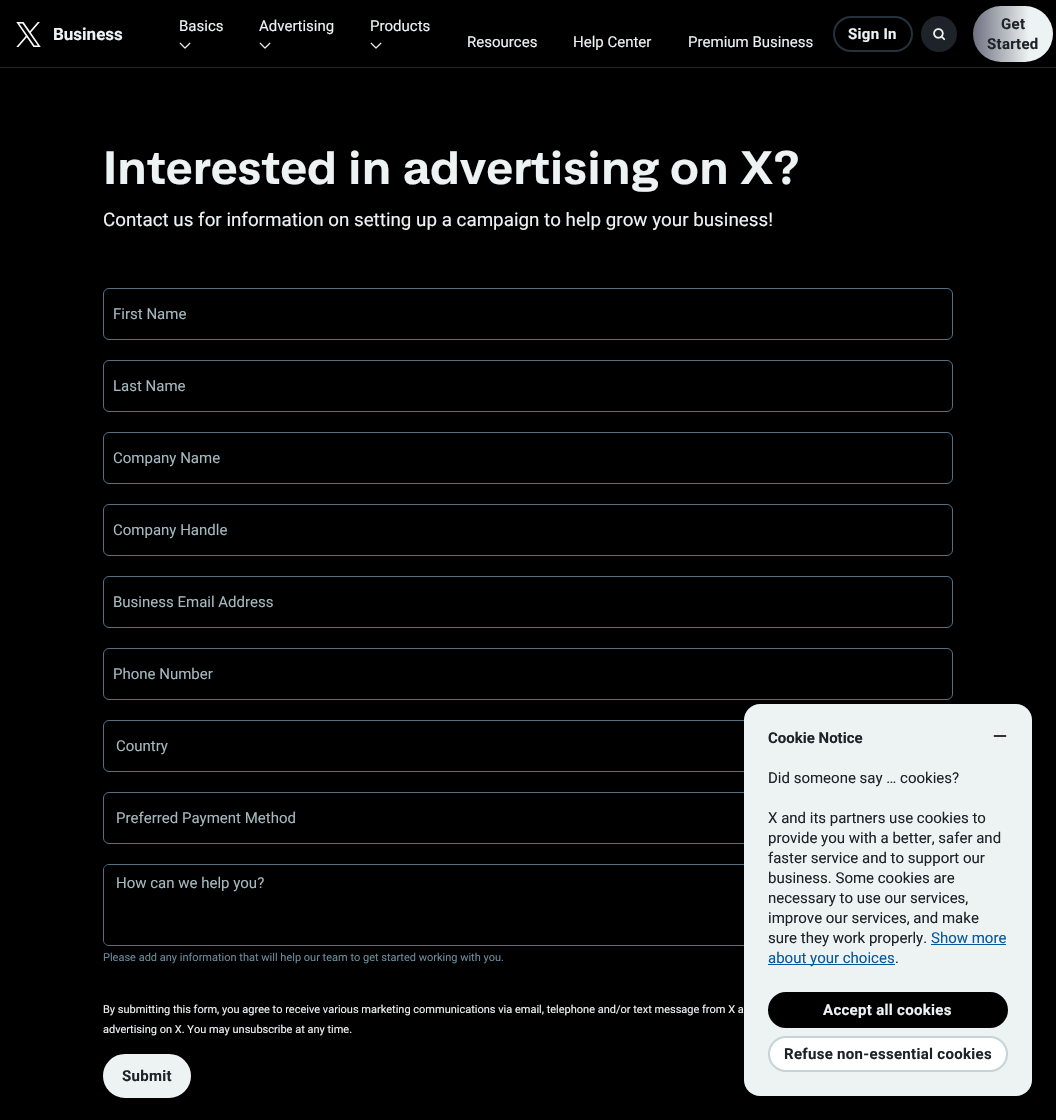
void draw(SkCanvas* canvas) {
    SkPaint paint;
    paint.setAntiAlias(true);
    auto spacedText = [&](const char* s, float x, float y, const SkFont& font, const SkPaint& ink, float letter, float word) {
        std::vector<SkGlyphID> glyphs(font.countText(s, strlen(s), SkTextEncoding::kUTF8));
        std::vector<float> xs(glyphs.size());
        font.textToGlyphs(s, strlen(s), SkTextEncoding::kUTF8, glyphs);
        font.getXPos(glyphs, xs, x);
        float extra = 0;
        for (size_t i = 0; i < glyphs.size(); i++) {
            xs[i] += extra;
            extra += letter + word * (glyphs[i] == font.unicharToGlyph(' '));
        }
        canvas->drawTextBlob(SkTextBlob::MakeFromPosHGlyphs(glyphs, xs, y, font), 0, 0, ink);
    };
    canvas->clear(0xFF000000);
    paint.setColor(0xFF1E2730);
    canvas->drawRect(SkRect::MakeXYWH(0, 67, 1056, 1), paint);
    canvas->drawImageRect(SkImages::DeferredFromEncodedData(SkData::MakeFromFileName("img1.png")), SkRect::MakeXYWH(16, 22, 25, 25), SkSamplingOptions());
    SkFont font1(fontMgr->matchFamilyStyle("Roboto", SkFontStyle::Bold()), 17);
    font1.setSubpixel(true);
    paint.setColor(0xFFEDF2F2);
    canvas->drawString("Business", 53, 40, font1, paint);
    SkFont font2(fontMgr->matchFamilyStyle("Roboto", SkFontStyle::Normal()), 15);
    font2.setSubpixel(true);
    canvas->drawString("Basics", 179, 31, font2, paint);
    canvas->drawImageRect(SkImages::DeferredFromEncodedData(SkData::MakeFromFileName("img2.png")), SkRect::MakeXYWH(179, 42, 12, 7), SkSamplingOptions());
    canvas->drawString("Advertising", 259, 31, font2, paint);
    canvas->drawImageRect(SkImages::DeferredFromEncodedData(SkData::MakeFromFileName("img2.png")), SkRect::MakeXYWH(259, 42, 12, 7), SkSamplingOptions());
    canvas->drawString("Products", 370, 31, font2, paint);
    canvas->drawImageRect(SkImages::DeferredFromEncodedData(SkData::MakeFromFileName("img2.png")), SkRect::MakeXYWH(370, 42, 12, 7), SkSamplingOptions());
    canvas->drawString("Resources", 467, 47, font2, paint);
    canvas->drawString("Help Center", 573, 47, font2, paint);
    canvas->drawString("Premium Business", 688, 47, font2, paint);
    paint.setStyle(SkPaint::kStroke_Style);
    paint.setStrokeWidth(2);
    paint.setColor(0xFF25313C);
    canvas->drawRoundRect(SkRect::MakeXYWH(834, 17, 78, 34), 17, 17, paint);
    SkFont font3(fontMgr->matchFamilyStyle("Roboto", SkFontStyle::Bold()), 15);
    font3.setSubpixel(true);
    paint.setStyle(SkPaint::kFill_Style);
    paint.setColor(0xFFEDF2F2);
    spacedText("Sign In", 848, 39, font3, paint, 0.3f, 0);
    paint.setColor(0xFF1D2328);
    canvas->drawCircle(939, 34, 17, paint);
    paint.setStyle(SkPaint::kStroke_Style);
    canvas->drawCircle(939, 34, 17, paint);
    canvas->drawImageRect(SkImages::DeferredFromEncodedData(SkData::MakeFromFileName("img3.png")), SkRect::MakeXYWH(933, 28, 13, 13), SkSamplingOptions());
    paint.setStyle(SkPaint::kFill_Style);
    {
        const SkColor colors[] = {0xFF6E7180, 0xFFEDF2F2};
        const float stops[] = {0, 0.7f};
        const SkPoint ends[] = {{973, 34}, {1053, 34}};
        paint.setShader(SkGradientShader::MakeLinear(ends, colors, stops, 2, SkTileMode::kClamp));
        paint.setAlpha(255);
    }
    canvas->drawRoundRect(SkRect::MakeXYWH(973, 6, 80, 56), 28, 28, paint);
    paint.setShader(nullptr);
    paint.setColor(0xFF1D2328);
    spacedText("Get", 1001, 29, font3, paint, 0.3f, 0);
    spacedText("Started", 987, 49, font3, paint, 0.3f, 0);
    SkFont font4(fontMgr->matchFamilyStyle("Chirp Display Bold", SkFontStyle::Bold()), 46);
    font4.setSubpixel(true);
    paint.setColor(0xFFEDF2F2);
    canvas->drawString("Interested in advertising on X?", 103, 184, font4, paint);
    SkFont font5(fontMgr->matchFamilyStyle("Roboto", SkFontStyle::Normal()), 18.8f);
    font5.setSubpixel(true);
    canvas->drawString("Contact us for information on setting up a campaign to help grow your business!", 103, 226, font5, paint);
    paint.setStyle(SkPaint::kStroke_Style);
    paint.setStrokeWidth(1);
    paint.setColor(0xFF557082);
    canvas->drawRoundRect(SkRect::MakeXYWH(103.5f, 288.5f, 849, 51), 5.5f, 5.5f, paint);
    paint.setStyle(SkPaint::kFill_Style);
    paint.setColor(0xFFA5B9C0);
    canvas->drawString("First Name", 113, 319, font2, paint);
    paint.setStyle(SkPaint::kStroke_Style);
    paint.setColor(0xFF557082);
    canvas->drawRoundRect(SkRect::MakeXYWH(103.5f, 360.5f, 849, 51), 5.5f, 5.5f, paint);
    paint.setStyle(SkPaint::kFill_Style);
    paint.setColor(0xFFA5B9C0);
    canvas->drawString("Last Name", 113, 391, font2, paint);
    paint.setStyle(SkPaint::kStroke_Style);
    paint.setColor(0xFF557082);
    canvas->drawRoundRect(SkRect::MakeXYWH(103.5f, 432.5f, 849, 51), 5.5f, 5.5f, paint);
    paint.setStyle(SkPaint::kFill_Style);
    paint.setColor(0xFFA5B9C0);
    canvas->drawString("Company Name", 113, 463, font2, paint);
    paint.setStyle(SkPaint::kStroke_Style);
    paint.setColor(0xFF557082);
    canvas->drawRoundRect(SkRect::MakeXYWH(103.5f, 504.5f, 849, 51), 5.5f, 5.5f, paint);
    paint.setStyle(SkPaint::kFill_Style);
    paint.setColor(0xFFA5B9C0);
    canvas->drawString("Company Handle", 113, 535, font2, paint);
    paint.setStyle(SkPaint::kStroke_Style);
    paint.setColor(0xFF557082);
    canvas->drawRoundRect(SkRect::MakeXYWH(103.5f, 576.5f, 849, 51), 5.5f, 5.5f, paint);
    paint.setStyle(SkPaint::kFill_Style);
    paint.setColor(0xFFA5B9C0);
    canvas->drawString("Business Email Address", 113, 607, font2, paint);
    paint.setStyle(SkPaint::kStroke_Style);
    paint.setColor(0xFF557082);
    canvas->drawRoundRect(SkRect::MakeXYWH(103.5f, 648.5f, 849, 51), 5.5f, 5.5f, paint);
    paint.setStyle(SkPaint::kFill_Style);
    paint.setColor(0xFFA5B9C0);
    canvas->drawString("Phone Number", 113, 679, font2, paint);
    paint.setStyle(SkPaint::kStroke_Style);
    paint.setColor(0xFF557082);
    canvas->drawRoundRect(SkRect::MakeXYWH(103.5f, 720.5f, 849, 51), 5.5f, 5.5f, paint);
    paint.setStyle(SkPaint::kFill_Style);
    paint.setColor(0xFFA5B9C0);
    canvas->drawString("Country", 116, 751, font2, paint);
    paint.setStyle(SkPaint::kStroke_Style);
    paint.setColor(0xFF557082);
    canvas->drawRoundRect(SkRect::MakeXYWH(103.5f, 792.5f, 849, 51), 5.5f, 5.5f, paint);
    paint.setStyle(SkPaint::kFill_Style);
    paint.setColor(0xFFA5B9C0);
    canvas->drawString("Preferred Payment Method", 116, 823, font2, paint);
    paint.setStyle(SkPaint::kStroke_Style);
    paint.setColor(0xFF557082);
    canvas->drawRoundRect(SkRect::MakeXYWH(103.5f, 864.5f, 849, 81), 5.5f, 5.5f, paint);
    paint.setStyle(SkPaint::kFill_Style);
    paint.setColor(0xFF000000);
    canvas->drawRoundRect(SkRect::MakeXYWH(104, 865, 848, 80), 5, 5, paint);
    canvas->drawPath(SkPathBuilder().moveTo(110, 865).lineTo(947, 865).cubicTo(950, 865, 952, 867, 952, 870).lineTo(952, 893).lineTo(104, 893).lineTo(104, 871).cubicTo(104, 867.5f, 106.5f, 865, 110, 865).close().detach(), paint);
    paint.setColor(0xFFA5B9C0);
    canvas->drawString("How can we help you?", 116, 888, font2, paint);
    SkFont font6(fontMgr->matchFamilyStyle("Roboto", SkFontStyle::Normal()), 11);
    font6.setSubpixel(true);
    paint.setColor(0xFF698A9B);
    canvas->drawString("Please add any information that will help our team to get started working with you.", 103, 961, font6, paint);
    paint.setColor(0xFFEDF2F2);
    canvas->drawString("By submitting this form, you agree to receive various marketing communications via email, telephone and/or text message from X a", 103, 1013, font6, paint);
    canvas->drawString("advertising on X. You may unsubscribe at any time.", 103, 1033, font6, paint);
    canvas->drawRoundRect(SkRect::MakeXYWH(104, 1055, 86, 42), 21, 21, paint);
    paint.setStyle(SkPaint::kStroke_Style);
    paint.setStrokeWidth(2);
    canvas->drawRoundRect(SkRect::MakeXYWH(104, 1055, 86, 42), 21, 21, paint);
    paint.setStyle(SkPaint::kFill_Style);
    paint.setColor(0xFF1D2328);
    spacedText("Submit", 122, 1081, font3, paint, 0.3f, 0);
    paint.setColor(0xFFEDF2F2);
    canvas->drawRoundRect(SkRect::MakeXYWH(744, 704, 288, 392), 16, 16, paint);
    paint.setColor(0xFF1D2328);
    canvas->drawString("Cookie Notice", 768, 743, font3, paint);
    canvas->drawImageRect(SkImages::DeferredFromEncodedData(SkData::MakeFromFileName("img4.png")), SkRect::MakeXYWH(993, 735, 14, 2), SkSamplingOptions());
    canvas->drawString("Did someone say … cookies?", 768, 783, font2, paint);
    canvas->drawString("X and its partners use cookies to", 768, 823, font2, paint);
    canvas->drawString("provide you with a better, safer and", 768, 843, font2, paint);
    canvas->drawString("faster service and to support our", 768, 863, font2, paint);
    canvas->drawString("business. Some cookies are", 768, 883, font2, paint);
    canvas->drawString("necessary to use our services,", 768, 903, font2, paint);
    canvas->drawString("improve our services, and make", 768, 923, font2, paint);
    canvas->drawString("sure they work properly.", 768, 943, font2, paint);
    paint.setColor(0xFF07599D);
    canvas->drawString("Show more", 931, 943, font2, paint);
    canvas->drawRect(SkRect::MakeXYWH(931, 944, 75, 1), paint);
    canvas->drawRect(SkRect::MakeXYWH(768, 964, 127, 1), paint);
    canvas->drawString("about your choices", 768, 963, font2, paint);
    paint.setColor(0xFF1D2328);
    canvas->drawString(".", 895, 963, font2, paint);
    paint.setColor(0xFF000000);
    canvas->drawRoundRect(SkRect::MakeXYWH(769, 993, 238, 34), 17, 17, paint);
    paint.setStyle(SkPaint::kStroke_Style);
    canvas->drawRoundRect(SkRect::MakeXYWH(769, 993, 238, 34), 17, 17, paint);
    paint.setStyle(SkPaint::kFill_Style);
    paint.setColor(0xFFEDF2F2);
    spacedText("Accept all cookies", 823, 1015, font3, paint, 0.3f, 0);
    paint.setColor(0xFFFFFFFF);
    canvas->drawRoundRect(SkRect::MakeXYWH(769, 1037, 238, 34), 17, 17, paint);
    paint.setStyle(SkPaint::kStroke_Style);
    paint.setColor(0xFFC6D3D7);
    canvas->drawRoundRect(SkRect::MakeXYWH(769, 1037, 238, 34), 17, 17, paint);
    paint.setStyle(SkPaint::kFill_Style);
    paint.setColor(0xFF1D2328);
    spacedText("Refuse non-essential cookies", 784, 1059, font3, paint, 0.3f, 0);
}
